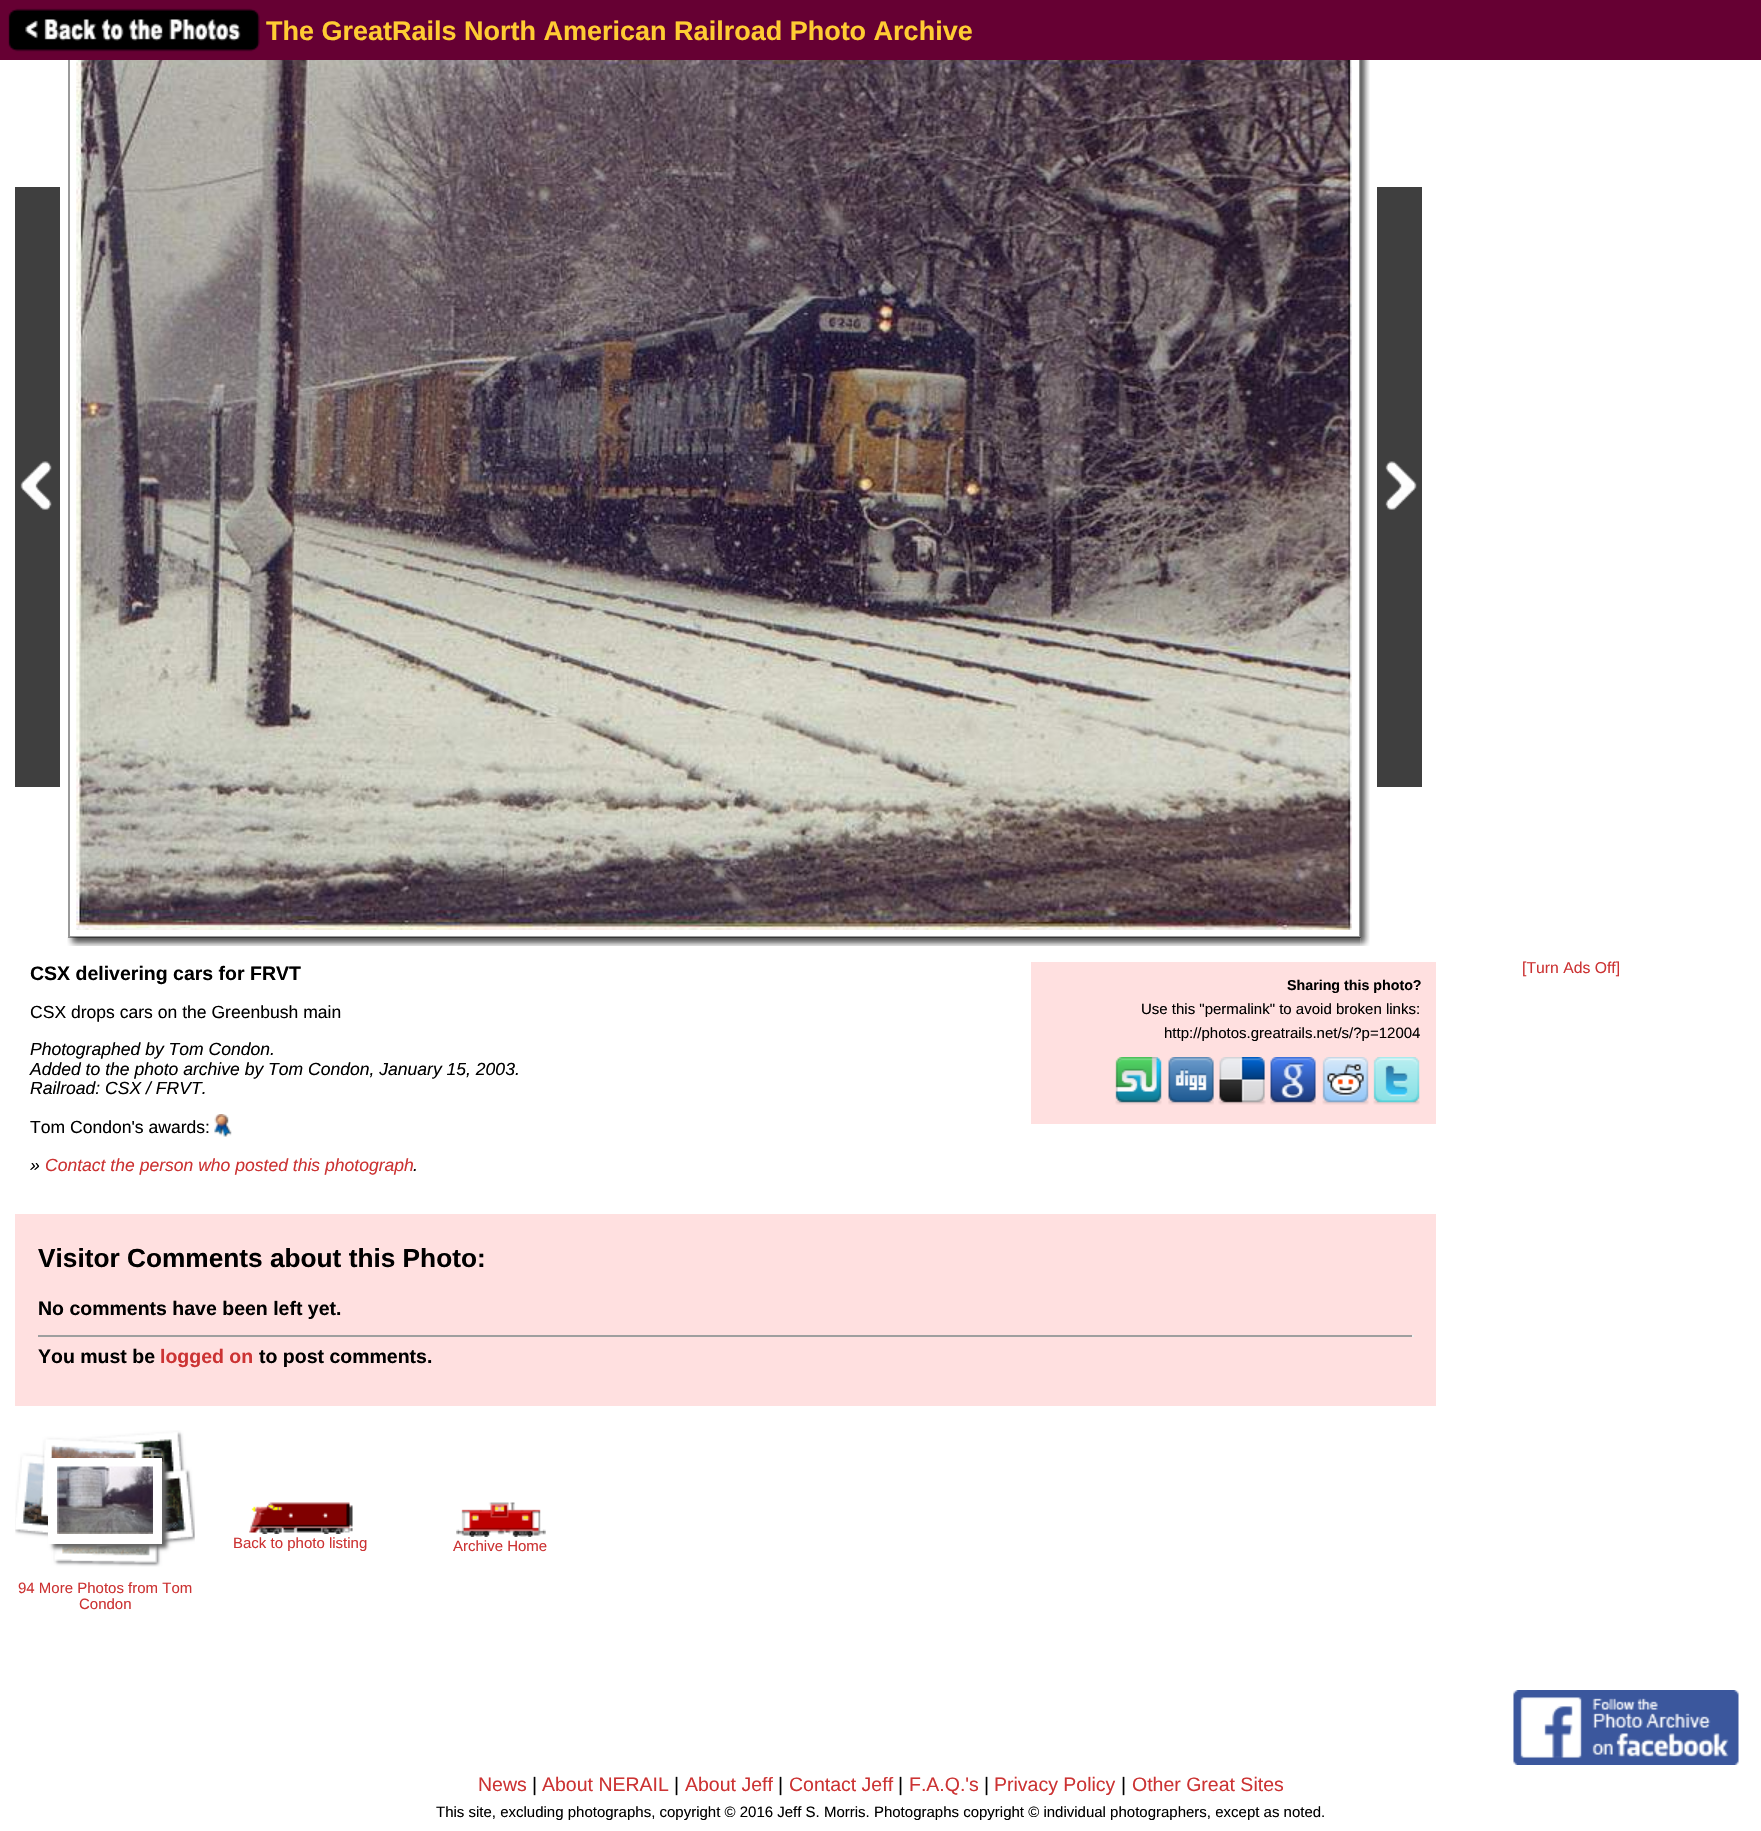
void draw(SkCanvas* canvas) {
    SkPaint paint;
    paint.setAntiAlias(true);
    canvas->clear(0xFFFFFFFF);
    paint.setStyle(SkPaint::kStroke_Style);
    paint.setStrokeWidth(2);
    paint.setColor(0xFF9A9A9A);
    canvas->drawRect(SkRect::MakeXYWH(69, 37, 1291, 900), paint);
    paint.setStyle(SkPaint::kFill_Style);
    paint.setColor(0xFF660033);
    canvas->drawRect(SkRect::MakeXYWH(0, 0, 1761, 60), paint);
    canvas->drawImageRect(SkImages::DeferredFromEncodedData(SkData::MakeFromFileName("img1.png")), SkRect::MakeXYWH(8, 8, 252, 44), SkSamplingOptions());
    SkFont font1(fontMgr->matchFamilyStyle("Liberation Sans", SkFontStyle::Bold()), 27);
    font1.setSubpixel(true);
    paint.setColor(0xFFFFCC33);
    canvas->drawString("The GreatRails North American Railroad Photo Archive", 266, 40, font1, paint);
    canvas->drawImageRect(SkImages::DeferredFromEncodedData(SkData::MakeFromFileName("img2.png")), SkRect::MakeXYWH(15, 187, 45, 600), SkSamplingOptions());
    paint.setColor(0xFFEEEEEE);
    canvas->drawRect(SkRect::MakeXYWH(77, 60, 1275, 870), paint);
    canvas->drawImageRect(SkImages::DeferredFromEncodedData(SkData::MakeFromFileName("img3.png")), SkRect::MakeXYWH(76, 60, 1276, 870), SkSamplingOptions());
    canvas->drawImageRect(SkImages::DeferredFromEncodedData(SkData::MakeFromFileName("img4.png")), SkRect::MakeXYWH(76, 60, 1276, 870), SkSamplingOptions());
    canvas->drawImageRect(SkImages::DeferredFromEncodedData(SkData::MakeFromFileName("img5.png")), SkRect::MakeXYWH(1360, 60, 10, 877), SkSamplingOptions());
    canvas->drawImageRect(SkImages::DeferredFromEncodedData(SkData::MakeFromFileName("img6.png")), SkRect::MakeXYWH(1377, 187, 45, 600), SkSamplingOptions());
    canvas->drawImageRect(SkImages::DeferredFromEncodedData(SkData::MakeFromFileName("img7.png")), SkRect::MakeXYWH(67, 937, 1294, 9), SkSamplingOptions());
    canvas->drawImageRect(SkImages::DeferredFromEncodedData(SkData::MakeFromFileName("img8.png")), SkRect::MakeXYWH(1360, 937, 10, 9), SkSamplingOptions());
    SkFont font2(fontMgr->matchFamilyStyle("Liberation Sans", SkFontStyle::Bold()), 19.5f);
    font2.setSubpixel(true);
    paint.setColor(0xFF000000);
    canvas->drawString("CSX delivering cars for FRVT", 30, 980, font2, paint);
    SkFont font3(fontMgr->matchFamilyStyle("Liberation Sans", SkFontStyle::Normal()), 17.55f);
    font3.setSubpixel(true);
    canvas->drawString("CSX drops cars on the Greenbush main", 30, 1018, font3, paint);
    SkFont font4(fontMgr->matchFamilyStyle("Liberation Sans", SkFontStyle::Italic()), 17.55f);
    font4.setSubpixel(true);
    canvas->drawString("Photographed by Tom Condon.", 30, 1055, font4, paint);
    canvas->drawString("Added to the photo archive by Tom Condon, January 15, 2003.", 30, 1075, font4, paint);
    canvas->drawString("Railroad: CSX / FRVT.", 30, 1094, font4, paint);
    canvas->drawString("Tom Condon's awards:", 30, 1133, font3, paint);
    canvas->drawImageRect(SkImages::DeferredFromEncodedData(SkData::MakeFromFileName("img9.png")), SkRect::MakeXYWH(214, 1114, 18, 23), SkSamplingOptions());
    canvas->drawString("»", 30, 1171, font4, paint);
    paint.setColor(0xFFCC3333);
    canvas->drawString("Contact the person who posted this photograph", 45, 1171, font4, paint);
    paint.setColor(0xFF000000);
    canvas->drawString(".", 413, 1171, font4, paint);
    paint.setColor(0xFFFFE0E0);
    canvas->drawRect(SkRect::MakeXYWH(1031, 962, 405, 162), paint);
    SkFont font5(fontMgr->matchFamilyStyle("Liberation Sans", SkFontStyle::Bold()), 14.25f);
    font5.setSubpixel(true);
    paint.setColor(0xFF000000);
    canvas->drawString("Sharing this photo?", 1287, 990, font5, paint);
    SkFont font6(fontMgr->matchFamilyStyle("Liberation Sans", SkFontStyle::Normal()), 15);
    font6.setSubpixel(true);
    canvas->drawString("Use this \"permalink\" to avoid broken links:", 1141, 1014, font6, paint);
    canvas->drawString("http://photos.greatrails.net/s/?p=12004", 1164, 1038, font6, paint);
    canvas->drawImageRect(SkImages::DeferredFromEncodedData(SkData::MakeFromFileName("img10.png")), SkRect::MakeXYWH(1115, 1057, 47, 48), SkSamplingOptions());
    canvas->drawImageRect(SkImages::DeferredFromEncodedData(SkData::MakeFromFileName("img11.png")), SkRect::MakeXYWH(1168, 1057, 46, 48), SkSamplingOptions());
    canvas->drawImageRect(SkImages::DeferredFromEncodedData(SkData::MakeFromFileName("img12.png")), SkRect::MakeXYWH(1218, 1057, 48, 48), SkSamplingOptions());
    canvas->drawImageRect(SkImages::DeferredFromEncodedData(SkData::MakeFromFileName("img13.png")), SkRect::MakeXYWH(1270, 1057, 46, 48), SkSamplingOptions());
    canvas->drawImageRect(SkImages::DeferredFromEncodedData(SkData::MakeFromFileName("img14.png")), SkRect::MakeXYWH(1322, 1057, 47, 48), SkSamplingOptions());
    canvas->drawImageRect(SkImages::DeferredFromEncodedData(SkData::MakeFromFileName("img15.png")), SkRect::MakeXYWH(1373, 1057, 47, 48), SkSamplingOptions());
    SkFont font7(fontMgr->matchFamilyStyle("Liberation Sans", SkFontStyle::Normal()), 15.75f);
    font7.setSubpixel(true);
    paint.setColor(0xFFCC3333);
    canvas->drawString("[Turn Ads Off]", 1522, 973, font7, paint);
    paint.setColor(0xFFFFE0E0);
    canvas->drawRect(SkRect::MakeXYWH(15, 1214, 1421, 192), paint);
    SkFont font8(fontMgr->matchFamilyStyle("Liberation Sans", SkFontStyle::Bold()), 26.25f);
    font8.setSubpixel(true);
    paint.setColor(0xFF000000);
    canvas->drawString("Visitor Comments about this Photo:", 38, 1267, font8, paint);
    canvas->drawString("No comments have been left yet.", 38, 1315, font2, paint);
    paint.setColor(0xFF9F9F9F);
    canvas->drawRect(SkRect::MakeXYWH(38, 1335, 1375, 2), paint);
    paint.setColor(0xFFEEEEEE);
    canvas->drawRect(SkRect::MakeXYWH(1412, 1335, 2, 2), paint);
    paint.setColor(0xFF000000);
    canvas->drawString("You must be", 38, 1363, font2, paint);
    paint.setColor(0xFFCC3333);
    canvas->drawString("logged on", 160, 1363, font2, paint);
    paint.setColor(0xFF000000);
    canvas->drawString("to post comments.", 259, 1363, font2, paint);
    canvas->drawImageRect(SkImages::DeferredFromEncodedData(SkData::MakeFromFileName("img16.png")), SkRect::MakeXYWH(249, 1502, 104, 32), SkSamplingOptions());
    paint.setColor(0xFFCC3333);
    canvas->drawString("Back to photo listing", 233, 1548, font6, paint);
    canvas->drawImageRect(SkImages::DeferredFromEncodedData(SkData::MakeFromFileName("img17.png")), SkRect::MakeXYWH(456, 1502, 90, 35), SkSamplingOptions());
    canvas->drawString("Archive Home", 453, 1551, font6, paint);
    canvas->drawImageRect(SkImages::DeferredFromEncodedData(SkData::MakeFromFileName("img18.png")), SkRect::MakeXYWH(15, 1430, 180, 137), SkSamplingOptions());
    paint.setColor(0xFF666666);
    paint.setMaskFilter(SkMaskFilter::MakeBlur(kNormal_SkBlurStyle, 2));
    canvas->drawRect(SkRect::MakeXYWH(53, 1463, 114, 85), paint);
    paint.setMaskFilter(nullptr);
    paint.setColor(0xFFFFFFFF);
    canvas->drawRect(SkRect::MakeXYWH(48, 1458, 114, 86), paint);
    canvas->drawImageRect(SkImages::DeferredFromEncodedData(SkData::MakeFromFileName("img19.png")), SkRect::MakeXYWH(57, 1466, 96, 68), SkSamplingOptions());
    paint.setColor(0xFFCC3333);
    canvas->drawString("94 More Photos from Tom", 18, 1593, font6, paint);
    canvas->drawString("Condon", 79, 1609, font6, paint);
    canvas->drawImageRect(SkImages::DeferredFromEncodedData(SkData::MakeFromFileName("img20.png")), SkRect::MakeXYWH(1513, 1690, 226, 75), SkSamplingOptions());
    SkFont font9(fontMgr->matchFamilyStyle("Liberation Sans", SkFontStyle::Normal()), 19.5f);
    font9.setSubpixel(true);
    canvas->drawString("News", 478, 1791, font9, paint);
    paint.setColor(0xFF000000);
    canvas->drawString("|", 532, 1791, font9, paint);
    paint.setColor(0xFFCC3333);
    canvas->drawString("About NERAIL", 542, 1791, font9, paint);
    paint.setColor(0xFF000000);
    canvas->drawString("|", 674, 1791, font9, paint);
    paint.setColor(0xFFCC3333);
    canvas->drawString("About Jeff", 685, 1791, font9, paint);
    paint.setColor(0xFF000000);
    canvas->drawString("|", 778, 1791, font9, paint);
    paint.setColor(0xFFCC3333);
    canvas->drawString("Contact Jeff", 789, 1791, font9, paint);
    paint.setColor(0xFF000000);
    canvas->drawString("|", 898, 1791, font9, paint);
    paint.setColor(0xFFCC3333);
    canvas->drawString("F.A.Q.'s", 909, 1791, font9, paint);
    paint.setColor(0xFF000000);
    canvas->drawString("|", 984, 1791, font9, paint);
    paint.setColor(0xFFCC3333);
    canvas->drawString("Privacy Policy", 994, 1791, font9, paint);
    paint.setColor(0xFF000000);
    canvas->drawString("|", 1121, 1791, font9, paint);
    paint.setColor(0xFFCC3333);
    canvas->drawString("Other Great Sites", 1132, 1791, font9, paint);
    paint.setColor(0xFF000000);
    canvas->drawString("This site, excluding photographs, copyright © 2016 Jeff S. Morris. Photographs copyright © individual photographers, except as noted.", 436, 1817, font6, paint);
}
